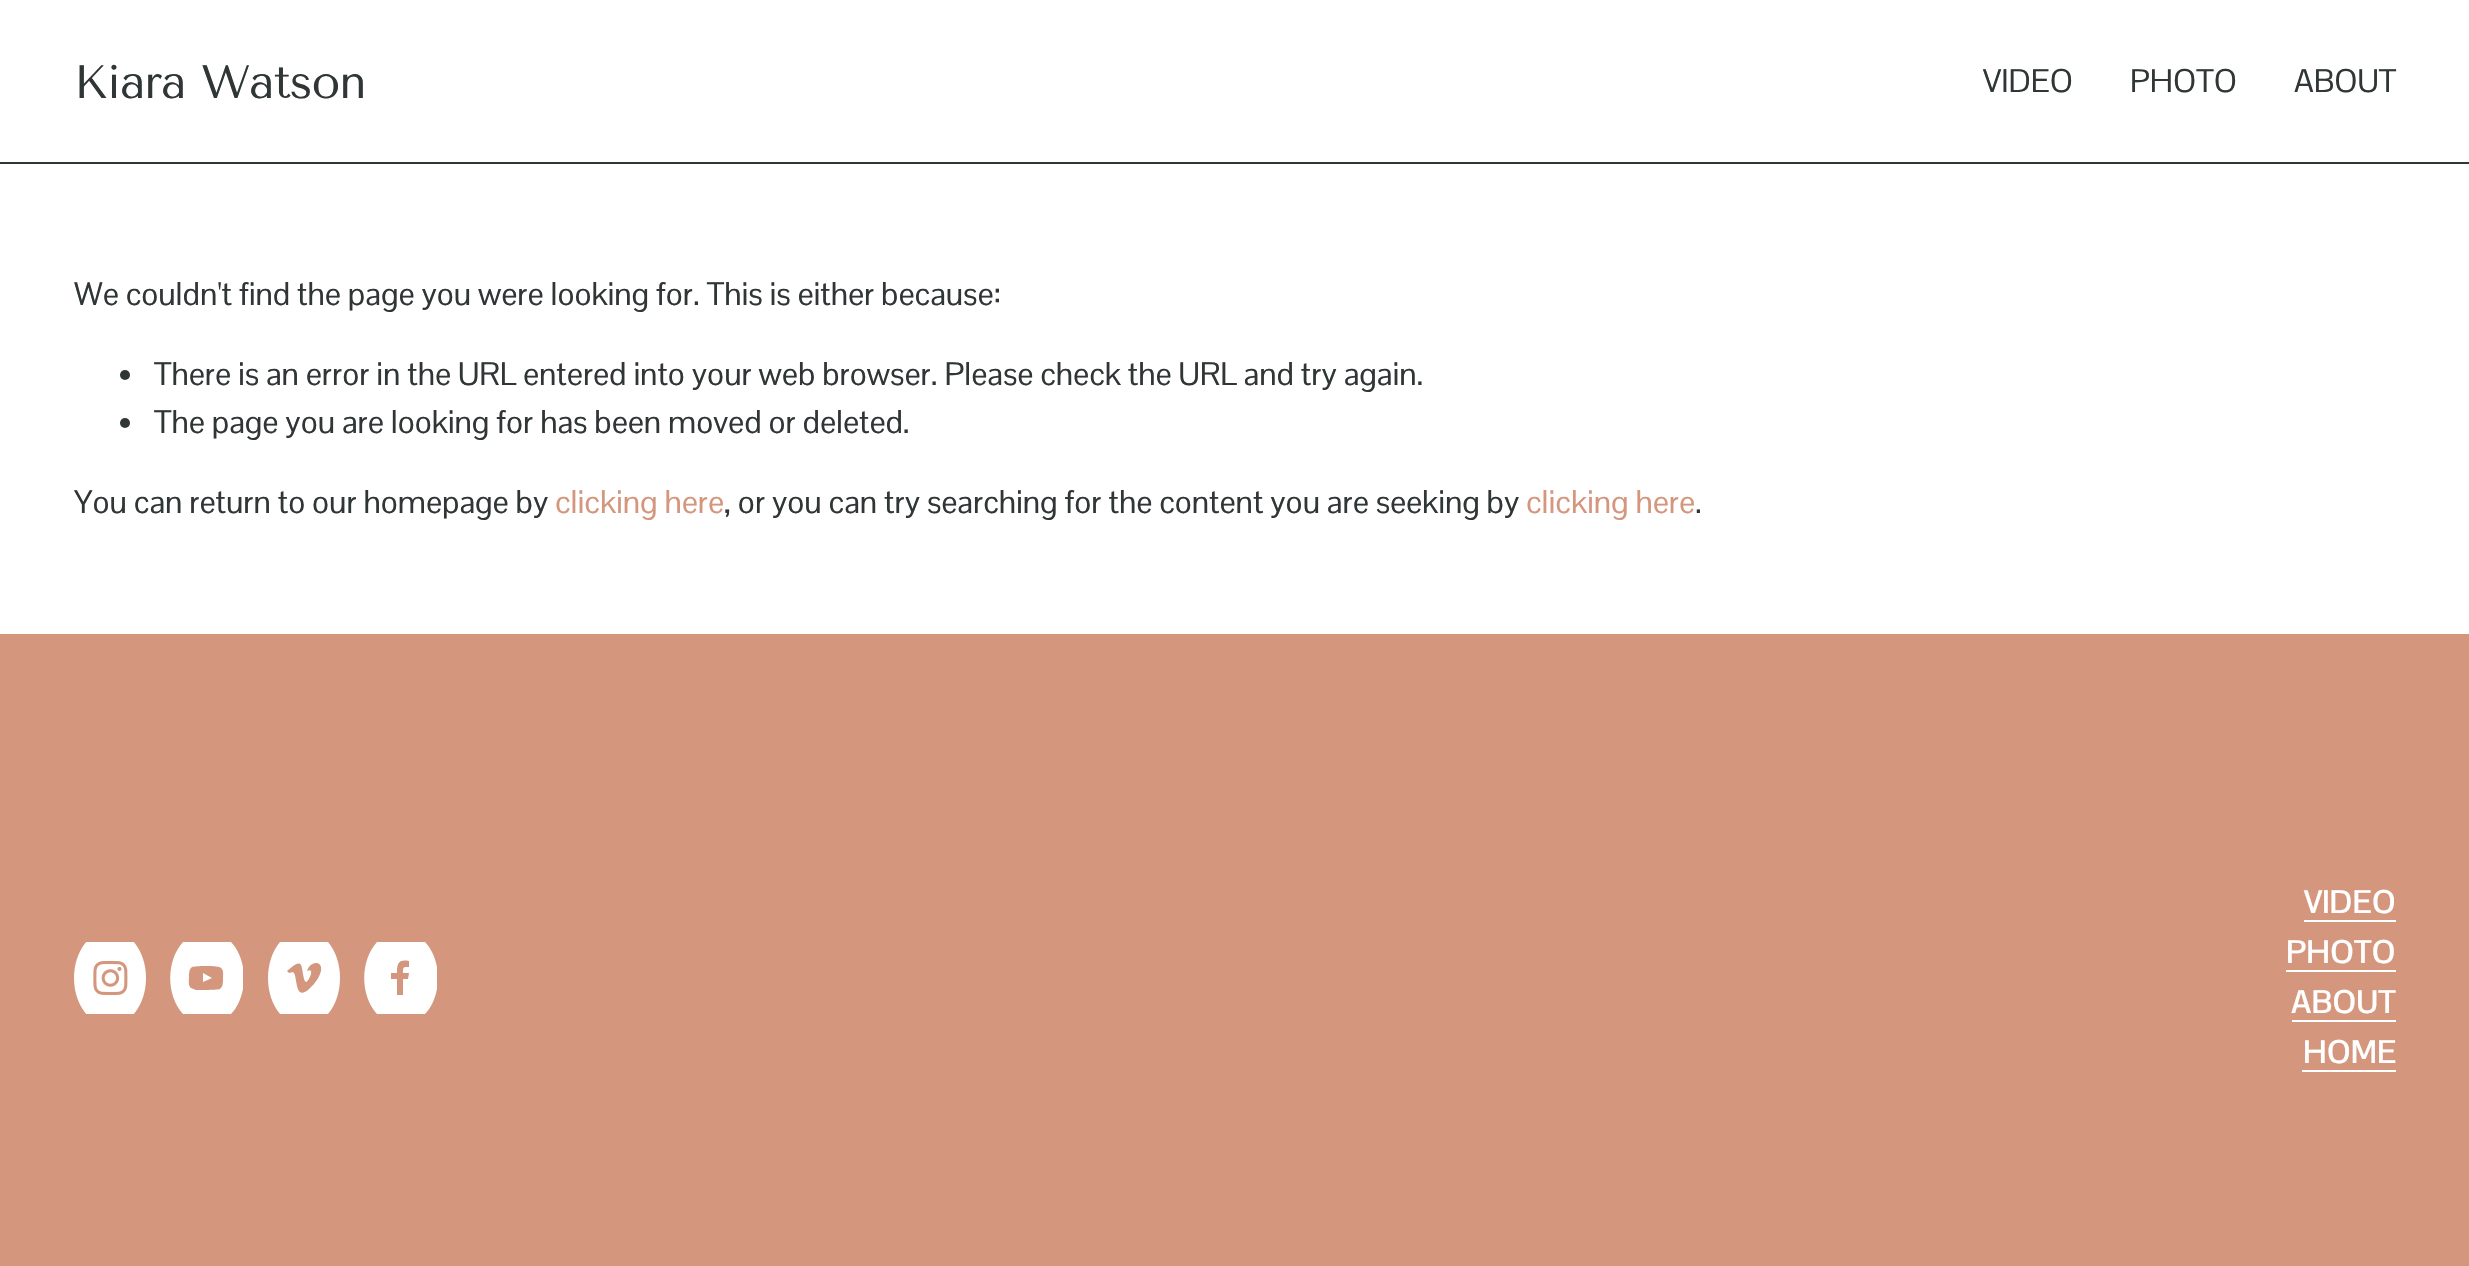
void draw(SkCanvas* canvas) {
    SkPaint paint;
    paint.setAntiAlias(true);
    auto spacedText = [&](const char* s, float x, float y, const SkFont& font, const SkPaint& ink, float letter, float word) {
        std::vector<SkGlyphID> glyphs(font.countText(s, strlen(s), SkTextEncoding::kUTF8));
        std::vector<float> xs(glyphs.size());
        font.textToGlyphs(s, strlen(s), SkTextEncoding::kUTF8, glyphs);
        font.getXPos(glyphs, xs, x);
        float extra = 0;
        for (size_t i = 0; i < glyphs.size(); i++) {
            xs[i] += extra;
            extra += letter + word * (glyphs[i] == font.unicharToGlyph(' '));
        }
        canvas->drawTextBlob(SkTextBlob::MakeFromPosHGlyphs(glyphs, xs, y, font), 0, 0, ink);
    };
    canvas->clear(0xFFFFFFFF);
    SkFont font1(fontMgr->matchFamilyStyle("Tenor Sans", SkFontStyle::Normal()), 46.75f);
    font1.setSubpixel(true);
    paint.setColor(0xFF303636);
    spacedText("Kiara Watson", 74, 98, font1, paint, -1, 0);
    SkFont font2(fontMgr->matchFamilyStyle("Pontano Sans", SkFontStyle::Normal()), 32);
    font2.setSubpixel(true);
    canvas->drawString("VIDEO", 1983, 92, font2, paint);
    canvas->drawString("PHOTO", 2130, 92, font2, paint);
    canvas->drawString("ABOUT", 2294, 92, font2, paint);
    canvas->drawRect(SkRect::MakeXYWH(0, 162, 2469, 2), paint);
    canvas->drawString("We couldn't find the page you were looking for. This is either because:", 74, 305, font2, paint);
    canvas->drawCircle(125, 375, 5, paint);
    canvas->drawString("There is an error in the URL entered into your web browser. Please check the URL and try again.", 154, 385, font2, paint);
    canvas->drawCircle(125, 423, 5, paint);
    canvas->drawString("The page you are looking for has been moved or deleted.", 154, 433, font2, paint);
    canvas->drawString("You can return to our homepage by", 74, 513, font2, paint);
    paint.setColor(0xFFD4967D);
    canvas->drawString("clicking here", 555, 513, font2, paint);
    paint.setColor(0xFF303636);
    canvas->drawString(", or you can try searching for the content you are seeking by", 724, 513, font2, paint);
    paint.setColor(0xFFD4967D);
    canvas->drawString("clicking here", 1526, 513, font2, paint);
    paint.setColor(0xFF303636);
    canvas->drawString(".", 1695, 513, font2, paint);
    paint.setColor(0xFFD4967D);
    canvas->drawRect(SkRect::MakeXYWH(0, 634, 2469, 632), paint);
    SkFont font3(fontMgr->matchFamilyStyle("Pontano Sans", SkFontStyle::Bold()), 32);
    font3.setSubpixel(true);
    paint.setColor(0xFFFFFFFF);
    canvas->drawString("VIDEO", 2304, 913, font3, paint);
    canvas->drawRect(SkRect::MakeXYWH(2304, 920, 92, 2), paint);
    canvas->drawImageRect(SkImages::DeferredFromEncodedData(SkData::MakeFromFileName("img1.png")), SkRect::MakeXYWH(74, 942, 72, 72), SkSamplingOptions());
    canvas->drawPath(SkPathBuilder(SkPathFillType::kEvenOdd).moveTo(183, 1014).cubicTo(166, 995, 166, 961, 183, 942).lineTo(231, 942).cubicTo(237, 948, 241, 957, 243, 967).lineTo(243, 989).cubicTo(241, 999, 237, 1008, 231, 1014).close().moveTo(223, 979).cubicTo(223, 976, 224, 970, 221, 968).cubicTo(219, 965, 194, 966, 192, 967).cubicTo(189, 969, 189, 974, 189, 977).cubicTo(189, 980, 188, 986, 191, 988).lineTo(196, 990).cubicTo(200, 990, 218, 990, 220, 989).cubicTo(223, 987, 223, 982, 223, 979).close().moveTo(203, 982).lineTo(203, 973).lineTo(212, 978).close().detach(), paint);
    canvas->drawPath(SkPathBuilder(SkPathFillType::kEvenOdd).moveTo(280, 1014).cubicTo(264, 995, 264, 961, 280, 942).lineTo(328, 942).cubicTo(344, 961, 344, 995, 328, 1014).close().moveTo(314, 984).cubicTo(332, 961, 311, 957, 307, 971).cubicTo(316, 967, 308, 983, 306, 982).cubicTo(303, 981, 303, 969, 301, 965).cubicTo(298, 960, 290, 969, 287, 971).lineTo(289, 973).lineTo(293, 972).cubicTo(298, 975, 294, 1001, 308, 990).close().detach(), paint);
    canvas->drawPath(SkPathBuilder(SkPathFillType::kEvenOdd).moveTo(377, 1014).cubicTo(360, 995, 360, 961, 377, 942).lineTo(425, 942).cubicTo(431, 948, 435, 957, 437, 967).lineTo(437, 989).cubicTo(435, 999, 431, 1008, 425, 1014).close().moveTo(409, 967).lineTo(409, 961).cubicTo(398, 959, 397, 964, 397, 973).lineTo(391, 973).lineTo(391, 979).lineTo(397, 979).lineTo(397, 995).lineTo(403, 995).lineTo(403, 979).lineTo(408, 979).lineTo(409, 973).lineTo(403, 973).cubicTo(403, 967, 403, 967, 409, 967).close().detach(), paint);
    canvas->drawString("PHOTO", 2286, 963, font3, paint);
    canvas->drawRect(SkRect::MakeXYWH(2286, 970, 110, 2), paint);
    canvas->drawString("ABOUT", 2291, 1013, font3, paint);
    canvas->drawRect(SkRect::MakeXYWH(2292, 1020, 104, 2), paint);
    canvas->drawString("HOME", 2303, 1063, font3, paint);
    canvas->drawRect(SkRect::MakeXYWH(2302, 1070, 94, 2), paint);
}
